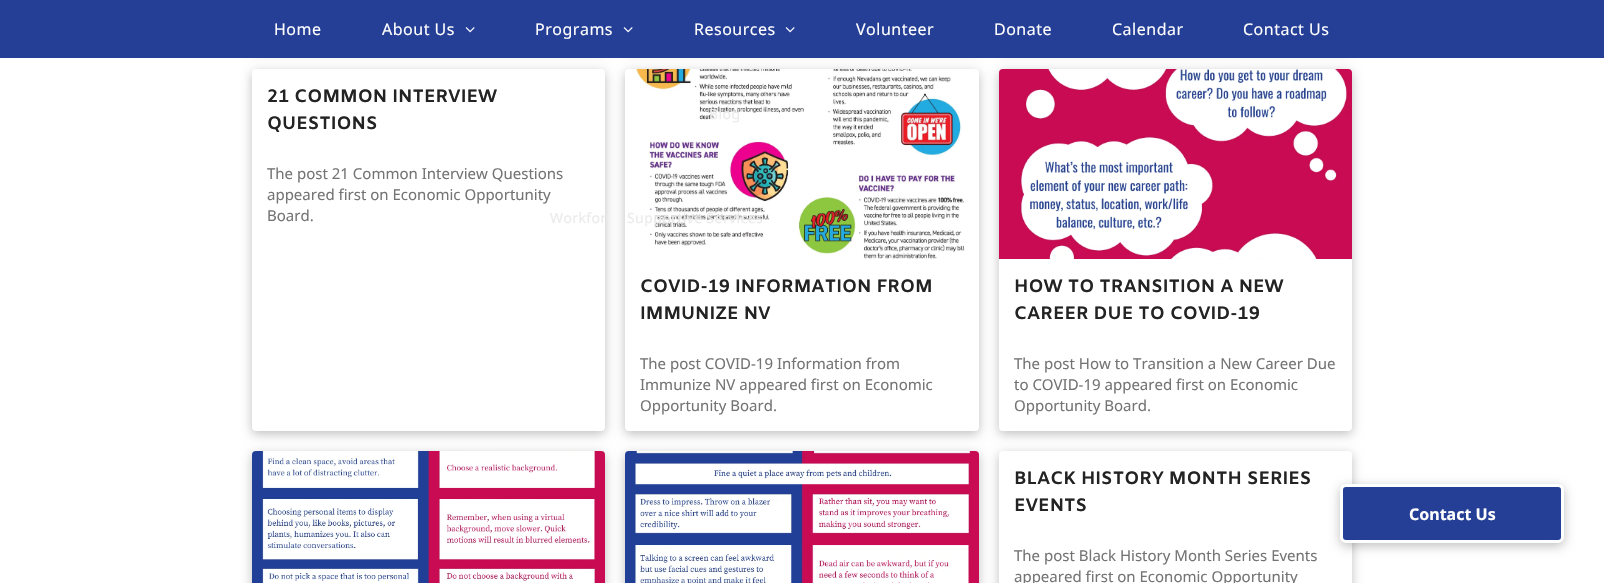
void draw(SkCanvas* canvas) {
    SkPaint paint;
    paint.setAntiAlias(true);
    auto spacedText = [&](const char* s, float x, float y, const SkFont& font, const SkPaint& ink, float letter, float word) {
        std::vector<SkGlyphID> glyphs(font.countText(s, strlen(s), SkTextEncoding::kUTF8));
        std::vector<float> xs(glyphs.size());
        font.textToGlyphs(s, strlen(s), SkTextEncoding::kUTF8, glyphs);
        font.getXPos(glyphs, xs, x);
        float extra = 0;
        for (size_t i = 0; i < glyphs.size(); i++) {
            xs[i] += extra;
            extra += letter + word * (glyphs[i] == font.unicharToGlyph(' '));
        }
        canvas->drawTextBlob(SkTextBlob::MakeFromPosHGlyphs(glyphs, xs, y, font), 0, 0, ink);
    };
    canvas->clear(0xFFFFFFFF);
    paint.setColor(0x40000000);
    paint.setMaskFilter(SkMaskFilter::MakeBlur(kNormal_SkBlurStyle, 5.5f));
    canvas->drawRoundRect(SkRect::MakeXYWH(252, -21, 353, 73), 4, 4, paint);
    paint.setMaskFilter(nullptr);
    paint.setMaskFilter(SkMaskFilter::MakeBlur(kNormal_SkBlurStyle, 5.5f));
    canvas->drawRoundRect(SkRect::MakeXYWH(625, -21, 354, 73), 4, 4, paint);
    paint.setMaskFilter(nullptr);
    paint.setMaskFilter(SkMaskFilter::MakeBlur(kNormal_SkBlurStyle, 5.5f));
    canvas->drawRoundRect(SkRect::MakeXYWH(999, -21, 353, 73), 4, 4, paint);
    paint.setMaskFilter(nullptr);
    paint.setMaskFilter(SkMaskFilter::MakeBlur(kNormal_SkBlurStyle, 5.5f));
    canvas->drawRoundRect(SkRect::MakeXYWH(252, 72, 353, 362), 4, 4, paint);
    paint.setMaskFilter(nullptr);
    paint.setMaskFilter(SkMaskFilter::MakeBlur(kNormal_SkBlurStyle, 5.5f));
    canvas->drawRoundRect(SkRect::MakeXYWH(625, 72, 354, 362), 4, 4, paint);
    paint.setMaskFilter(nullptr);
    paint.setMaskFilter(SkMaskFilter::MakeBlur(kNormal_SkBlurStyle, 5.5f));
    canvas->drawRoundRect(SkRect::MakeXYWH(999, 72, 353, 362), 4, 4, paint);
    paint.setMaskFilter(nullptr);
    paint.setColor(0xFF263F96);
    canvas->drawRect(SkRect::MakeXYWH(0, 0, 1604, 58), paint);
    SkFont font1(fontMgr->matchFamilyStyle("Noto Sans", SkFontStyle::Normal()), 16);
    font1.setSubpixel(true);
    paint.setColor(0xFFFFFFFF);
    spacedText("Home", 274, 35, font1, paint, 0.5f, 0);
    spacedText("About Us", 382, 35, font1, paint, 0.5f, 0);
    canvas->drawImageRect(SkImages::DeferredFromEncodedData(SkData::MakeFromFileName("img1.png")), SkRect::MakeXYWH(465, 27, 10, 6), SkSamplingOptions());
    spacedText("Programs", 535, 35, font1, paint, 0.5f, 0);
    canvas->drawImageRect(SkImages::DeferredFromEncodedData(SkData::MakeFromFileName("img1.png")), SkRect::MakeXYWH(623, 27, 10, 6), SkSamplingOptions());
    canvas->drawRoundRect(SkRect::MakeXYWH(252, 69, 353, 362), 4, 4, paint);
    SkFont font2(fontMgr->matchFamilyStyle("Noto Sans", SkFontStyle::Normal()), 14);
    font2.setSubpixel(true);
    paint.setColor(0xFFEBEBEB);
    spacedText("Workfor", 550, 223, font2, paint, 0.4f, 0);
    paint.setColor(0xFFFFFFFF);
    canvas->drawRoundRect(SkRect::MakeXYWH(625, 69, 354, 362), 4, 4, paint);
    canvas->drawImageRect(SkImages::DeferredFromEncodedData(SkData::MakeFromFileName("img2.png")), SkRect::MakeXYWH(636, 69, 329, 190), SkSamplingOptions());
    paint.setColor(0xFFEBEBEB);
    spacedText("Supportive Services", 627, 223, font2, paint, 0.4f, 0);
    paint.setColor(0xFFFFFFFF);
    spacedText("Volunteer", 856, 35, font1, paint, 0.5f, 0);
    spacedText("Calendar", 1112, 35, font1, paint, 0.5f, 0);
    spacedText("Resources", 694, 35, font1, paint, 0.5f, 0);
    canvas->drawImageRect(SkImages::DeferredFromEncodedData(SkData::MakeFromFileName("img1.png")), SkRect::MakeXYWH(785, 27, 10, 6), SkSamplingOptions());
    paint.setColor(0xFFEBEBEB);
    spacedText("Blog", 709, 119, font2, paint, 0.4f, 0);
    paint.setColor(0xFFFFFFFF);
    spacedText("Donate", 994, 35, font1, paint, 0.5f, 0);
    spacedText("Contact Us", 1243, 35, font1, paint, 0.5f, 0);
    SkFont font3(fontMgr->matchFamilyStyle("Amiko", SkFontStyle::Bold()), 18);
    font3.setSubpixel(true);
    paint.setColor(0xFF232323);
    canvas->drawString("21 COMMON INTERVIEW", 267, 102, font3, paint);
    canvas->drawString("QUESTIONS", 267, 129, font3, paint);
    SkFont font4(fontMgr->matchFamilyStyle("Noto Sans", SkFontStyle::Normal()), 15);
    font4.setSubpixel(true);
    paint.setColor(0xFF747474);
    canvas->drawString("The post 21 Common Interview Questions", 267, 179, font4, paint);
    canvas->drawString("appeared first on Economic Opportunity", 267, 200, font4, paint);
    canvas->drawString("Board.", 267, 221, font4, paint);
    paint.setColor(0xFF232323);
    canvas->drawString("COVID-19 INFORMATION FROM", 640, 292, font3, paint);
    canvas->drawString("IMMUNIZE NV", 640, 319, font3, paint);
    paint.setColor(0xFF747474);
    canvas->drawString("The post COVID-19 Information from", 640, 369, font4, paint);
    canvas->drawString("Immunize NV appeared first on Economic", 640, 390, font4, paint);
    canvas->drawString("Opportunity Board.", 640, 411, font4, paint);
    paint.setColor(0xFFFFFFFF);
    canvas->drawRoundRect(SkRect::MakeXYWH(999, 69, 353, 362), 4, 4, paint);
    canvas->drawImageRect(SkImages::DeferredFromEncodedData(SkData::MakeFromFileName("img3.png")), SkRect::MakeXYWH(999, 69, 353, 190), SkSamplingOptions());
    paint.setColor(0xFF232323);
    canvas->drawString("HOW TO TRANSITION A NEW", 1014, 292, font3, paint);
    canvas->drawString("CAREER DUE TO COVID-19", 1014, 319, font3, paint);
    paint.setColor(0xFF747474);
    canvas->drawString("The post How to Transition a New Career Due", 1014, 369, font4, paint);
    canvas->drawString("to COVID-19 appeared first on Economic", 1014, 390, font4, paint);
    canvas->drawString("Opportunity Board.", 1014, 411, font4, paint);
    paint.setColor(0x40000000);
    paint.setMaskFilter(SkMaskFilter::MakeBlur(kNormal_SkBlurStyle, 5.5f));
    canvas->drawRoundRect(SkRect::MakeXYWH(252, 454, 353, 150), 4, 4, paint);
    paint.setMaskFilter(nullptr);
    canvas->drawImageRect(SkImages::DeferredFromEncodedData(SkData::MakeFromFileName("img4.png")), SkRect::MakeXYWH(252, 451, 353, 132), SkSamplingOptions());
    paint.setMaskFilter(SkMaskFilter::MakeBlur(kNormal_SkBlurStyle, 5.5f));
    canvas->drawRoundRect(SkRect::MakeXYWH(625, 454, 354, 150), 4, 4, paint);
    paint.setMaskFilter(nullptr);
    canvas->drawImageRect(SkImages::DeferredFromEncodedData(SkData::MakeFromFileName("img5.png")), SkRect::MakeXYWH(625, 451, 354, 132), SkSamplingOptions());
    paint.setMaskFilter(SkMaskFilter::MakeBlur(kNormal_SkBlurStyle, 5.5f));
    canvas->drawRoundRect(SkRect::MakeXYWH(999, 454, 353, 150), 4, 4, paint);
    paint.setMaskFilter(nullptr);
    paint.setColor(0xFFFFFFFF);
    canvas->drawRoundRect(SkRect::MakeXYWH(999, 451, 353, 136), 4, 4, paint);
    paint.setColor(0xFF232323);
    canvas->drawString("BLACK HISTORY MONTH SERIES", 1014, 484, font3, paint);
    canvas->drawString("EVENTS", 1014, 511, font3, paint);
    paint.setColor(0xFF747474);
    canvas->drawString("The post Black History Month Series Events", 1014, 561, font4, paint);
    canvas->drawString("appeared first on Economic Opportunity", 1014, 582, font4, paint);
    paint.setColor(0x40000000);
    paint.setMaskFilter(SkMaskFilter::MakeBlur(kNormal_SkBlurStyle, 5.5f));
    canvas->drawRoundRect(SkRect::MakeXYWH(1340, 487, 224, 59), 6, 6, paint);
    paint.setMaskFilter(nullptr);
    paint.setColor(0xFF263F96);
    canvas->drawRoundRect(SkRect::MakeXYWH(1341.5f, 485.5f, 221, 56), 4.5f, 4.5f, paint);
    paint.setStyle(SkPaint::kStroke_Style);
    paint.setStrokeWidth(3);
    paint.setColor(0xFFFFFFFF);
    canvas->drawRoundRect(SkRect::MakeXYWH(1341.5f, 485.5f, 221, 56), 4.5f, 4.5f, paint);
    SkFont font5(fontMgr->matchFamilyStyle("Noto Sans", SkFontStyle::Bold()), 16);
    font5.setSubpixel(true);
    paint.setStyle(SkPaint::kFill_Style);
    canvas->drawString("Contact Us", 1409, 520, font5, paint);
}
